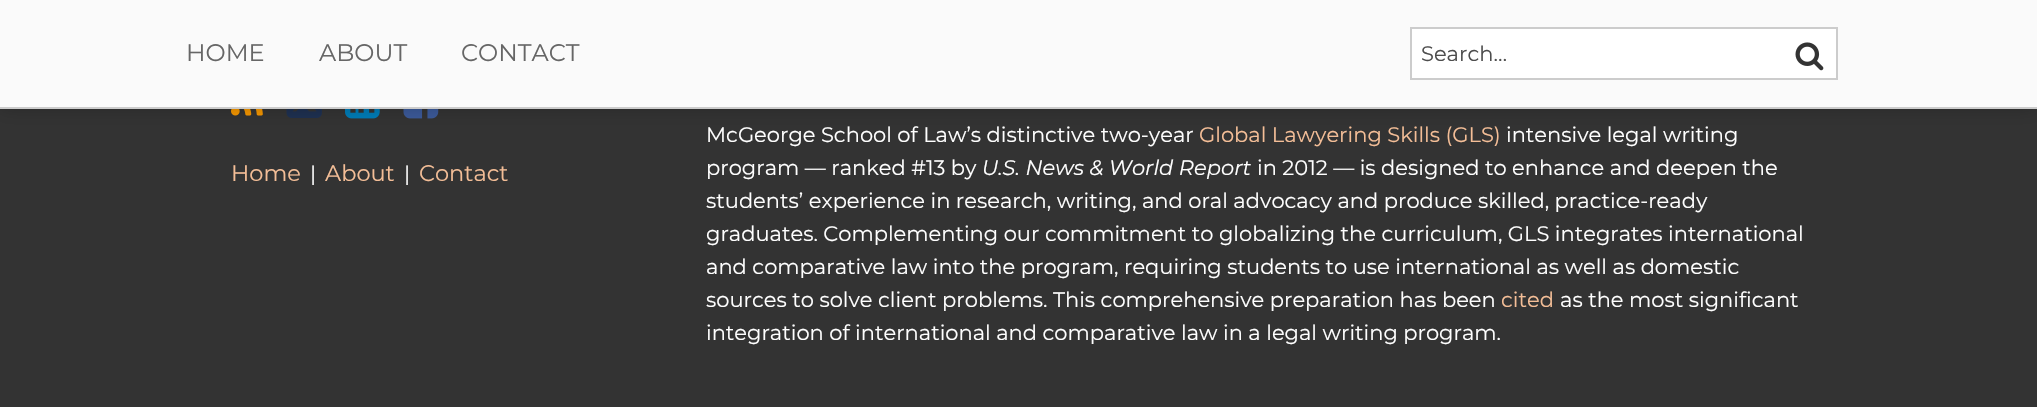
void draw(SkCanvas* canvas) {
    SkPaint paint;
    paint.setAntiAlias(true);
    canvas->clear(0xFF333333);
    canvas->drawImageRect(SkImages::DeferredFromEncodedData(SkData::MakeFromFileName("img2.png")), SkRect::MakeXYWH(231, 109, 32, 7), SkSamplingOptions());
    canvas->drawImageRect(SkImages::DeferredFromEncodedData(SkData::MakeFromFileName("img3.png")), SkRect::MakeXYWH(286, 109, 36, 9), SkSamplingOptions());
    canvas->drawImageRect(SkImages::DeferredFromEncodedData(SkData::MakeFromFileName("img4.png")), SkRect::MakeXYWH(345, 109, 35, 10), SkSamplingOptions());
    canvas->drawImageRect(SkImages::DeferredFromEncodedData(SkData::MakeFromFileName("img5.png")), SkRect::MakeXYWH(403, 109, 36, 10), SkSamplingOptions());
    paint.setColor(0x3B000000);
    paint.setMaskFilter(SkMaskFilter::MakeBlur(kNormal_SkBlurStyle, 9));
    canvas->drawRect(SkRect::MakeXYWH(0, 0, 2037, 108), paint);
    paint.setMaskFilter(nullptr);
    paint.setColor(0xFFFAFAFA);
    canvas->drawRect(SkRect::MakeXYWH(0, 0, 2037, 107), paint);
    paint.setColor(0xFFCCCCCC);
    canvas->drawRect(SkRect::MakeXYWH(0, 107, 2037, 2), paint);
    SkFont font1(fontMgr->matchFamilyStyle("Montserrat", SkFontStyle::Normal()), 24);
    font1.setSubpixel(true);
    paint.setColor(0xFF666666);
    canvas->drawString("HOME", 186, 61, font1, paint);
    canvas->drawString("ABOUT", 319, 61, font1, paint);
    canvas->drawString("CONTACT", 461, 61, font1, paint);
    paint.setColor(0xFFFFFFFF);
    canvas->drawRect(SkRect::MakeXYWH(1411, 28, 426, 51), paint);
    paint.setStyle(SkPaint::kStroke_Style);
    paint.setStrokeWidth(2);
    paint.setColor(0xFFCCCCCC);
    canvas->drawRect(SkRect::MakeXYWH(1411, 28, 426, 51), paint);
    SkFont font2(fontMgr->matchFamilyStyle("Montserrat", SkFontStyle::Normal()), 21);
    font2.setSubpixel(true);
    paint.setStyle(SkPaint::kFill_Style);
    paint.setColor(0xFF4D4D4D);
    canvas->drawString("Search…", 1421, 61, font2, paint);
    canvas->drawImageRect(SkImages::DeferredFromEncodedData(SkData::MakeFromFileName("img1.png")), SkRect::MakeXYWH(1795, 42, 29, 29), SkSamplingOptions());
    SkFont font3(fontMgr->matchFamilyStyle("Montserrat", SkFontStyle::Normal()), 22.5f);
    font3.setSubpixel(true);
    paint.setColor(0xFFF4BE97);
    canvas->drawString("Home", 231, 181, font3, paint);
    paint.setColor(0xFFFFFFFF);
    canvas->drawString("|", 310, 181, font2, paint);
    paint.setColor(0xFFF4BE97);
    canvas->drawString("About", 325, 181, font3, paint);
    paint.setColor(0xFFFFFFFF);
    canvas->drawString("|", 404, 181, font2, paint);
    paint.setColor(0xFFF4BE97);
    canvas->drawString("Contact", 419, 181, font3, paint);
    paint.setColor(0xFFFFFFFF);
    canvas->drawString("McGeorge School of Law’s distinctive two-year", 706, 142, font2, paint);
    paint.setColor(0xFFF4BE97);
    canvas->drawString("Global Lawyering Skills (GLS)", 1199, 142, font2, paint);
    paint.setColor(0xFFFFFFFF);
    canvas->drawString("intensive legal writing", 1506, 142, font2, paint);
    canvas->drawString("program — ranked #13 by", 706, 175, font2, paint);
    SkFont font4(fontMgr->matchFamilyStyle("Montserrat", SkFontStyle::Italic()), 21);
    font4.setSubpixel(true);
    canvas->drawString("U.S. News & World Report", 982, 175, font4, paint);
    canvas->drawString("in 2012 — is designed to enhance and deepen the", 1257, 175, font2, paint);
    canvas->drawString("students’ experience in research, writing, and oral advocacy and produce skilled, practice-ready", 706, 208, font2, paint);
    canvas->drawString("graduates. Complementing our commitment to globalizing the curriculum, GLS integrates international", 706, 241, font2, paint);
    canvas->drawString("and comparative law into the program, requiring students to use international as well as domestic", 706, 274, font2, paint);
    canvas->drawString("sources to solve client problems. This comprehensive preparation has been", 706, 307, font2, paint);
    paint.setColor(0xFFF4BE97);
    canvas->drawString("cited", 1501, 307, font2, paint);
    paint.setColor(0xFFFFFFFF);
    canvas->drawString("as the most significant", 1560, 307, font2, paint);
    canvas->drawString("integration of international and comparative law in a legal writing program.", 706, 340, font2, paint);
}
